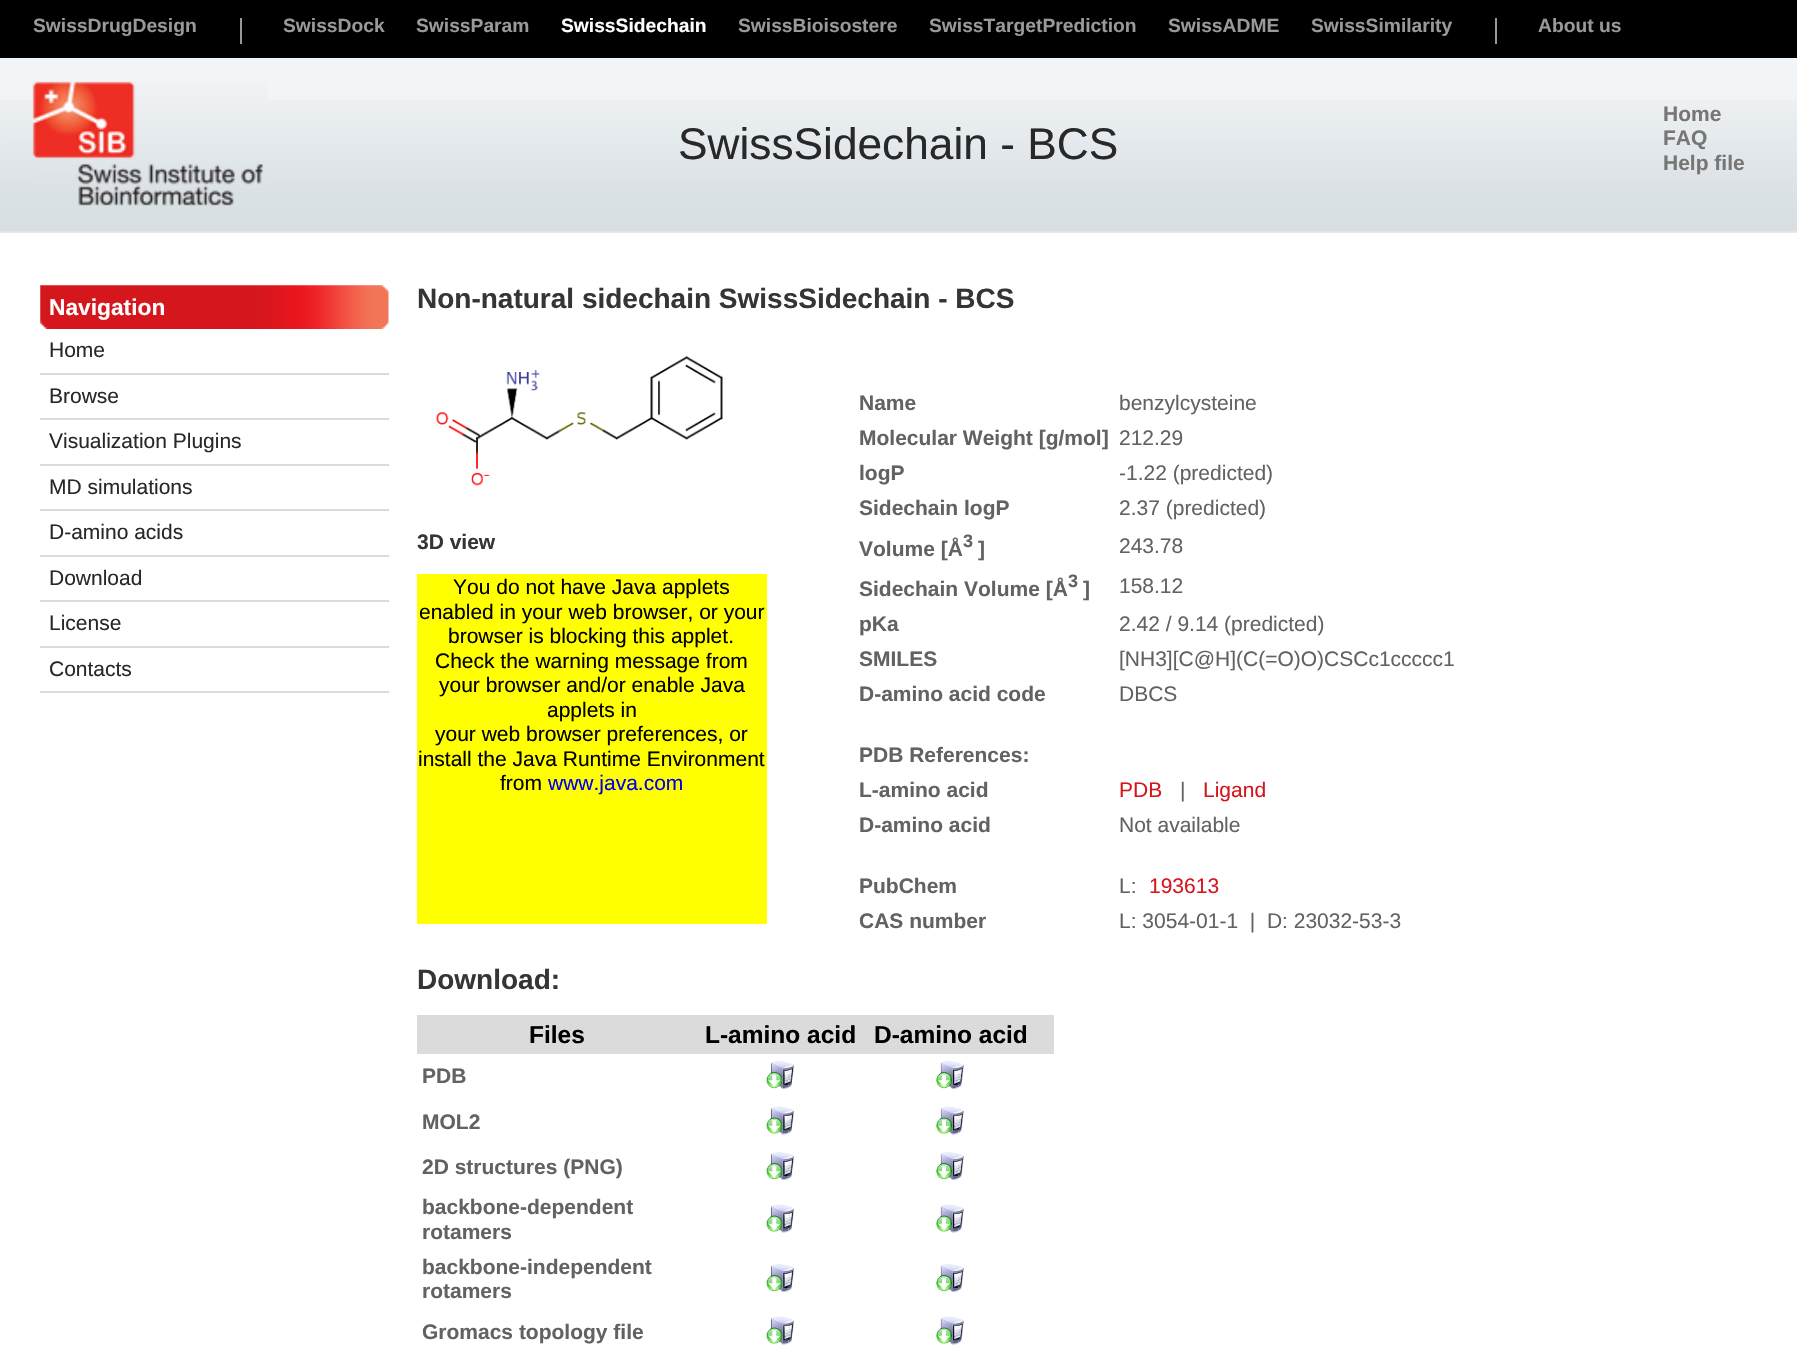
void draw(SkCanvas* canvas) {
    SkPaint paint;
    paint.setAntiAlias(true);
    canvas->clear(0xFFFFFFFF);
    paint.setColor(0xFF000000);
    canvas->drawRect(SkRect::MakeXYWH(0, 0, 1797, 58), paint);
    SkFont font1(fontMgr->matchFamilyStyle("Liberation Sans", SkFontStyle::Bold()), 19.25f);
    font1.setSubpixel(true);
    paint.setColor(0xFF999999);
    canvas->drawString("SwissDrugDesign", 33, 32, font1, paint);
    canvas->drawRect(SkRect::MakeXYWH(240, 18, 2, 26), paint);
    canvas->drawString("SwissDock", 283, 32, font1, paint);
    canvas->drawString("SwissParam", 416, 32, font1, paint);
    paint.setColor(0xFFFFFFFF);
    canvas->drawString("SwissSidechain", 561, 32, font1, paint);
    paint.setColor(0xFF999999);
    canvas->drawString("SwissBioisostere", 738, 32, font1, paint);
    canvas->drawString("SwissTargetPrediction", 929, 32, font1, paint);
    canvas->drawString("SwissADME", 1168, 32, font1, paint);
    canvas->drawString("SwissSimilarity", 1311, 32, font1, paint);
    canvas->drawRect(SkRect::MakeXYWH(1495, 18, 2, 26), paint);
    canvas->drawString("About us", 1538, 32, font1, paint);
    paint.setColor(0xFFF1F5F8);
    canvas->drawRect(SkRect::MakeXYWH(0, 58, 1797, 175), paint);
    canvas->drawImageRect(SkImages::DeferredFromEncodedData(SkData::MakeFromFileName("img1.png")), SkRect::MakeXYWH(0, 100, 1797, 133), SkSamplingOptions());
    canvas->drawImageRect(SkImages::DeferredFromEncodedData(SkData::MakeFromFileName("img2.png")), SkRect::MakeXYWH(32, 81, 236, 125), SkSamplingOptions());
    SkFont font2(fontMgr->matchFamilyStyle("Liberation Sans", SkFontStyle::Normal()), 44.25f);
    font2.setSubpixel(true);
    paint.setColor(0xFF282828);
    canvas->drawString("SwissSidechain - BCS", 678, 159, font2, paint);
    SkFont font3(fontMgr->matchFamilyStyle("Liberation Sans", SkFontStyle::Bold()), 21);
    font3.setSubpixel(true);
    paint.setColor(0xFF767676);
    canvas->drawString("Home", 1663, 121, font3, paint);
    canvas->drawString("FAQ", 1663, 145, font3, paint);
    canvas->drawString("Help file", 1663, 170, font3, paint);
    canvas->drawImageRect(SkImages::DeferredFromEncodedData(SkData::MakeFromFileName("img3.png")), SkRect::MakeXYWH(40, 285, 349, 44), SkSamplingOptions());
    SkFont font4(fontMgr->matchFamilyStyle("Liberation Sans", SkFontStyle::Bold()), 22.75f);
    font4.setSubpixel(true);
    paint.setColor(0xFFFFFFFF);
    canvas->drawString("Navigation", 49, 315, font4, paint);
    paint.setColor(0xFFDBDBDB);
    canvas->drawRect(SkRect::MakeXYWH(40, 373, 349, 2), paint);
    SkFont font5(fontMgr->matchFamilyStyle("Liberation Sans", SkFontStyle::Normal()), 21);
    font5.setSubpixel(true);
    paint.setColor(0xFF282828);
    canvas->drawString("Home", 49, 357, font5, paint);
    paint.setColor(0xFFDBDBDB);
    canvas->drawRect(SkRect::MakeXYWH(40, 418, 349, 2), paint);
    paint.setColor(0xFF282828);
    canvas->drawString("Browse", 49, 403, font5, paint);
    paint.setColor(0xFFDBDBDB);
    canvas->drawRect(SkRect::MakeXYWH(40, 464, 349, 2), paint);
    paint.setColor(0xFF282828);
    canvas->drawString("Visualization Plugins", 49, 448, font5, paint);
    paint.setColor(0xFFDBDBDB);
    canvas->drawRect(SkRect::MakeXYWH(40, 509, 349, 2), paint);
    paint.setColor(0xFF282828);
    canvas->drawString("MD simulations", 49, 494, font5, paint);
    paint.setColor(0xFFDBDBDB);
    canvas->drawRect(SkRect::MakeXYWH(40, 555, 349, 2), paint);
    paint.setColor(0xFF282828);
    canvas->drawString("D-amino acids", 49, 539, font5, paint);
    paint.setColor(0xFFDBDBDB);
    canvas->drawRect(SkRect::MakeXYWH(40, 600, 349, 2), paint);
    paint.setColor(0xFF282828);
    canvas->drawString("Download", 49, 585, font5, paint);
    paint.setColor(0xFFDBDBDB);
    canvas->drawRect(SkRect::MakeXYWH(40, 646, 349, 2), paint);
    paint.setColor(0xFF282828);
    canvas->drawString("License", 49, 630, font5, paint);
    paint.setColor(0xFFDBDBDB);
    canvas->drawRect(SkRect::MakeXYWH(40, 691, 349, 2), paint);
    paint.setColor(0xFF282828);
    canvas->drawString("Contacts", 49, 676, font5, paint);
    SkFont font6(fontMgr->matchFamilyStyle("Liberation Sans", SkFontStyle::Bold()), 28);
    font6.setSubpixel(true);
    paint.setColor(0xFF353535);
    canvas->drawString("Non-natural sidechain SwissSidechain - BCS", 417, 308, font6, paint);
    canvas->drawImageRect(SkImages::DeferredFromEncodedData(SkData::MakeFromFileName("img4.png")), SkRect::MakeXYWH(436, 355, 288, 131), SkSamplingOptions());
    canvas->drawString("3D view", 417, 549, font3, paint);
    paint.setColor(0xFFFFFF00);
    canvas->drawRect(SkRect::MakeXYWH(417, 574, 350, 350), paint);
    paint.setColor(0xFF000000);
    canvas->drawString("You do not have Java applets", 453, 594, font5, paint);
    canvas->drawString("enabled in your web browser, or your", 419, 619, font5, paint);
    canvas->drawString("browser is blocking this applet.", 448, 643, font5, paint);
    canvas->drawString("Check the warning message from", 435, 668, font5, paint);
    canvas->drawString("your browser and/or enable Java", 439, 692, font5, paint);
    canvas->drawString("applets in", 547, 717, font5, paint);
    canvas->drawString("your web browser preferences, or", 435, 741, font5, paint);
    canvas->drawString("install the Java Runtime Environment", 418, 766, font5, paint);
    canvas->drawString("from", 500, 790, font5, paint);
    paint.setColor(0xFF0000EE);
    canvas->drawString("www.java.com", 548, 790, font5, paint);
    paint.setColor(0xFF626262);
    canvas->drawString("Name", 859, 410, font3, paint);
    canvas->drawString("benzylcysteine", 1119, 410, font5, paint);
    canvas->drawString("Molecular Weight [g/mol]", 859, 445, font3, paint);
    canvas->drawString("212.29", 1119, 445, font5, paint);
    canvas->drawString("logP", 859, 480, font3, paint);
    canvas->drawString("-1.22 (predicted)", 1119, 480, font5, paint);
    canvas->drawString("Sidechain logP", 859, 515, font3, paint);
    canvas->drawString("2.37 (predicted)", 1119, 515, font5, paint);
    canvas->drawString("Volume [Å", 859, 556, font3, paint);
    SkFont font7(fontMgr->matchFamilyStyle("Liberation Sans", SkFontStyle::Bold()), 18);
    font7.setSubpixel(true);
    canvas->drawString("3", 963, 547, font7, paint);
    canvas->drawString("]", 978, 556, font3, paint);
    canvas->drawString("243.78", 1119, 553, font5, paint);
    canvas->drawString("Sidechain Volume [Å", 859, 596, font3, paint);
    canvas->drawString("3", 1068, 587, font7, paint);
    canvas->drawString("]", 1083, 596, font3, paint);
    canvas->drawString("158.12", 1119, 593, font5, paint);
    canvas->drawString("pKa", 859, 631, font3, paint);
    canvas->drawString("2.42 / 9.14 (predicted)", 1119, 631, font5, paint);
    canvas->drawString("SMILES", 859, 666, font3, paint);
    canvas->drawString("[NH3][C@H](C(=O)O)CSCc1ccccc1", 1119, 666, font5, paint);
    canvas->drawString("D-amino acid code", 859, 701, font3, paint);
    canvas->drawString("DBCS", 1119, 701, font5, paint);
    canvas->drawString("PDB References:", 859, 762, font3, paint);
    canvas->drawString("L-amino acid", 859, 797, font3, paint);
    paint.setColor(0xFFD6161D);
    canvas->drawString("PDB", 1119, 797, font5, paint);
    paint.setColor(0xFF626262);
    canvas->drawString("|", 1180, 797, font5, paint);
    paint.setColor(0xFFD6161D);
    canvas->drawString("Ligand", 1203, 797, font5, paint);
    paint.setColor(0xFF626262);
    canvas->drawString("D-amino acid", 859, 832, font3, paint);
    canvas->drawString("Not available", 1119, 832, font5, paint);
    canvas->drawString("PubChem", 859, 893, font3, paint);
    canvas->drawString("L:", 1119, 893, font5, paint);
    paint.setColor(0xFFD6161D);
    canvas->drawString("193613", 1149, 893, font5, paint);
    paint.setColor(0xFF626262);
    canvas->drawString("CAS number", 859, 928, font3, paint);
    canvas->drawString("L: 3054-01-1  |  D: 23032-53-3", 1119, 928, font5, paint);
    paint.setColor(0xFF353535);
    canvas->drawString("Download:", 417, 989, font6, paint);
    paint.setColor(0xFFDBDBDB);
    canvas->drawRect(SkRect::MakeXYWH(417, 1015, 637, 39), paint);
    SkFont font8(fontMgr->matchFamilyStyle("Liberation Sans", SkFontStyle::Bold()), 24.5f);
    font8.setSubpixel(true);
    paint.setColor(0xFF000000);
    canvas->drawString("Files", 529, 1043, font8, paint);
    canvas->drawString("L-amino acid", 705, 1043, font8, paint);
    canvas->drawString("D-amino acid", 874, 1043, font8, paint);
    paint.setColor(0xFF626262);
    canvas->drawString("PDB", 422, 1083, font3, paint);
    canvas->drawImageRect(SkImages::DeferredFromEncodedData(SkData::MakeFromFileName("img5.png")), SkRect::MakeXYWH(765, 1061, 29, 29), SkSamplingOptions());
    canvas->drawImageRect(SkImages::DeferredFromEncodedData(SkData::MakeFromFileName("img6.png")), SkRect::MakeXYWH(935, 1061, 29, 29), SkSamplingOptions());
    canvas->drawString("MOL2", 422, 1129, font3, paint);
    canvas->drawImageRect(SkImages::DeferredFromEncodedData(SkData::MakeFromFileName("img7.png")), SkRect::MakeXYWH(765, 1106, 29, 29), SkSamplingOptions());
    canvas->drawImageRect(SkImages::DeferredFromEncodedData(SkData::MakeFromFileName("img8.png")), SkRect::MakeXYWH(935, 1106, 29, 29), SkSamplingOptions());
    canvas->drawString("2D structures (PNG)", 422, 1174, font3, paint);
    canvas->drawImageRect(SkImages::DeferredFromEncodedData(SkData::MakeFromFileName("img5.png")), SkRect::MakeXYWH(765, 1152, 29, 29), SkSamplingOptions());
    canvas->drawImageRect(SkImages::DeferredFromEncodedData(SkData::MakeFromFileName("img6.png")), SkRect::MakeXYWH(935, 1152, 29, 29), SkSamplingOptions());
    canvas->drawString("backbone-dependent", 422, 1214, font3, paint);
    canvas->drawString("rotamers", 422, 1239, font3, paint);
    canvas->drawImageRect(SkImages::DeferredFromEncodedData(SkData::MakeFromFileName("img7.png")), SkRect::MakeXYWH(765, 1204, 29, 29), SkSamplingOptions());
    canvas->drawImageRect(SkImages::DeferredFromEncodedData(SkData::MakeFromFileName("img8.png")), SkRect::MakeXYWH(935, 1204, 29, 29), SkSamplingOptions());
    canvas->drawString("backbone-independent", 422, 1274, font3, paint);
    canvas->drawString("rotamers", 422, 1298, font3, paint);
    canvas->drawImageRect(SkImages::DeferredFromEncodedData(SkData::MakeFromFileName("img5.png")), SkRect::MakeXYWH(765, 1264, 29, 29), SkSamplingOptions());
    canvas->drawImageRect(SkImages::DeferredFromEncodedData(SkData::MakeFromFileName("img6.png")), SkRect::MakeXYWH(935, 1264, 29, 29), SkSamplingOptions());
    canvas->drawString("Gromacs topology file", 422, 1339, font3, paint);
    canvas->drawImageRect(SkImages::DeferredFromEncodedData(SkData::MakeFromFileName("img7.png")), SkRect::MakeXYWH(765, 1316, 29, 29), SkSamplingOptions());
    canvas->drawImageRect(SkImages::DeferredFromEncodedData(SkData::MakeFromFileName("img8.png")), SkRect::MakeXYWH(935, 1316, 29, 29), SkSamplingOptions());
}
